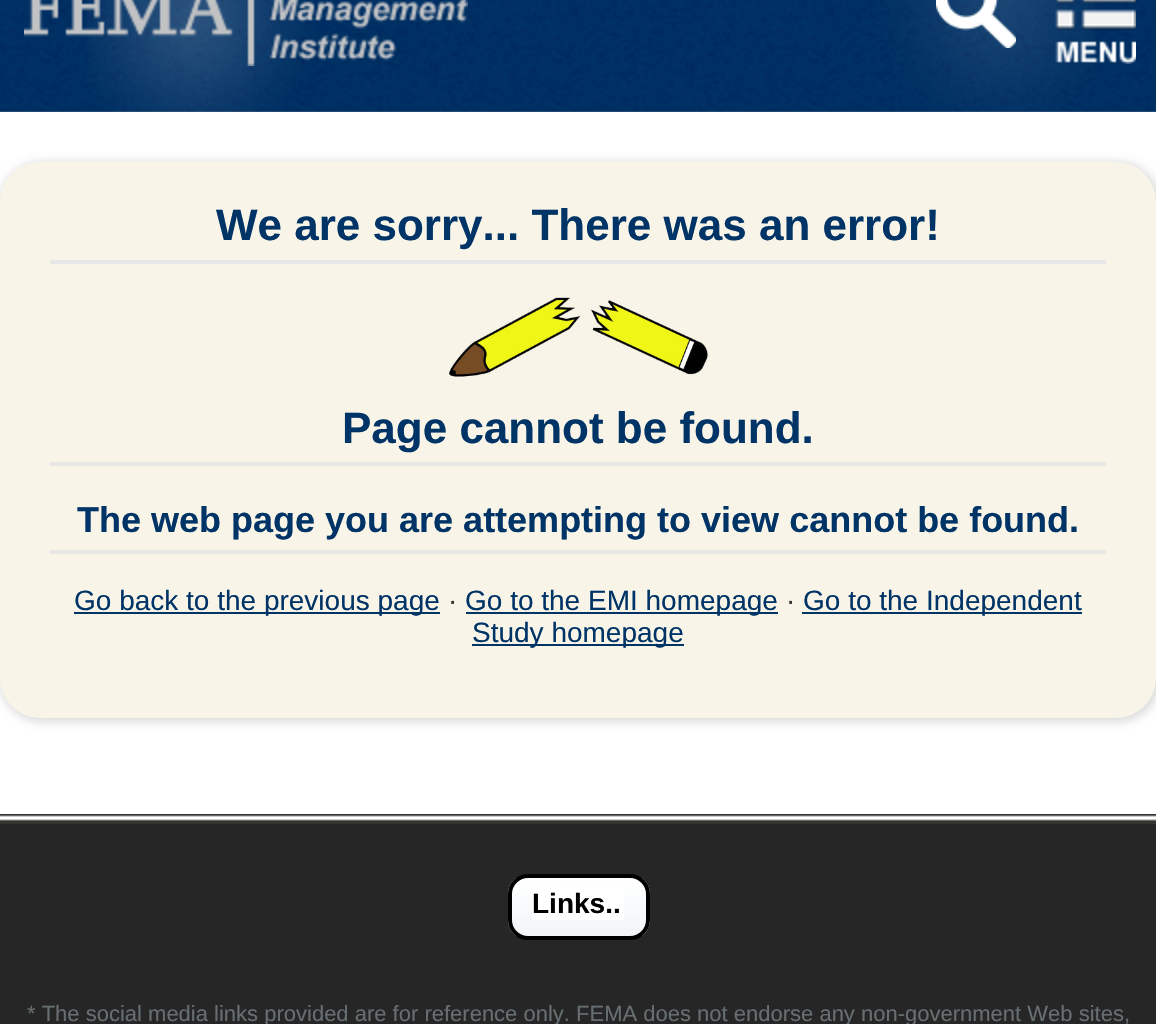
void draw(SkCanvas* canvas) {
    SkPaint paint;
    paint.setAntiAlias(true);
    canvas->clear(0xFFFFFFFF);
    canvas->drawImageRect(SkImages::DeferredFromEncodedData(SkData::MakeFromFileName("img1.png")), SkRect::MakeXYWH(0, 0, 1156, 112), SkSamplingOptions());
    canvas->drawImageRect(SkImages::DeferredFromEncodedData(SkData::MakeFromFileName("img2.png")), SkRect::MakeXYWH(87, 0, 1008, 112), SkSamplingOptions());
    canvas->drawImageRect(SkImages::DeferredFromEncodedData(SkData::MakeFromFileName("img3.png")), SkRect::MakeXYWH(24, 0, 444, 66), SkSamplingOptions());
    canvas->drawImageRect(SkImages::DeferredFromEncodedData(SkData::MakeFromFileName("img4.png")), SkRect::MakeXYWH(936, 0, 80, 48), SkSamplingOptions());
    canvas->drawImageRect(SkImages::DeferredFromEncodedData(SkData::MakeFromFileName("img5.png")), SkRect::MakeXYWH(1055, 0, 81, 64), SkSamplingOptions());
    paint.setColor(0x24000000);
    paint.setMaskFilter(SkMaskFilter::MakeBlur(kNormal_SkBlurStyle, 5));
    canvas->drawRoundRect(SkRect::MakeXYWH(0, 162, 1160, 560), 42, 42, paint);
    paint.setMaskFilter(nullptr);
    paint.setColor(0xFFF8F5E8);
    canvas->drawRoundRect(SkRect::MakeXYWH(0, 162, 1156, 556), 40, 40, paint);
    paint.setColor(0xFFE7E7E7);
    canvas->drawRect(SkRect::MakeXYWH(50, 260, 1056, 4), paint);
    SkFont font1(fontMgr->matchFamilyStyle("Liberation Sans", SkFontStyle::Bold()), 44);
    font1.setSubpixel(true);
    paint.setColor(0xFF003366);
    canvas->drawString("We are sorry... There was an error!", 216, 240, font1, paint);
    canvas->drawImageRect(SkImages::DeferredFromEncodedData(SkData::MakeFromFileName("img6.png")), SkRect::MakeXYWH(448, 296, 261, 81), SkSamplingOptions());
    paint.setColor(0xFFE7E7E7);
    canvas->drawRect(SkRect::MakeXYWH(50, 462, 1056, 4), paint);
    paint.setColor(0xFF003366);
    canvas->drawString("Page cannot be found.", 342, 443, font1, paint);
    paint.setColor(0xFFE7E7E7);
    canvas->drawRect(SkRect::MakeXYWH(50, 550, 1056, 4), paint);
    SkFont font2(fontMgr->matchFamilyStyle("Liberation Sans", SkFontStyle::Bold()), 36);
    font2.setSubpixel(true);
    paint.setColor(0xFF003366);
    canvas->drawString("The web page you are attempting to view cannot be found.", 77, 532, font2, paint);
    canvas->drawRect(SkRect::MakeXYWH(74, 612, 366, 2), paint);
    SkFont font3(fontMgr->matchFamilyStyle("Liberation Sans", SkFontStyle::Normal()), 28);
    font3.setSubpixel(true);
    canvas->drawString("Go back to the previous page", 74, 610, font3, paint);
    paint.setColor(0xFF333333);
    canvas->drawString("·", 448, 610, font3, paint);
    paint.setColor(0xFF003366);
    canvas->drawRect(SkRect::MakeXYWH(466, 612, 312, 2), paint);
    canvas->drawString("Go to the EMI homepage", 465, 610, font3, paint);
    paint.setColor(0xFF333333);
    canvas->drawString("·", 786, 610, font3, paint);
    paint.setColor(0xFF003366);
    canvas->drawRect(SkRect::MakeXYWH(802, 612, 280, 2), paint);
    canvas->drawString("Go to the Independent", 803, 610, font3, paint);
    canvas->drawRect(SkRect::MakeXYWH(472, 644, 212, 2), paint);
    canvas->drawString("Study homepage", 472, 642, font3, paint);
    paint.setColor(0xFF262626);
    canvas->drawRect(SkRect::MakeXYWH(0, 824, 1156, 200), paint);
    canvas->drawImageRect(SkImages::DeferredFromEncodedData(SkData::MakeFromFileName("img7.png")), SkRect::MakeXYWH(0, 814, 1156, 10), SkSamplingOptions());
    canvas->save();
    canvas->clipPath(SkPathBuilder().moveTo(528, 874).lineTo(630, 874).cubicTo(641, 874, 650, 883, 650, 894).lineTo(650, 920).cubicTo(650, 931, 641, 940, 630, 940).lineTo(528, 940).cubicTo(517, 940, 508, 931, 508, 920).lineTo(508, 894).cubicTo(508, 883, 517, 874, 528, 874).close().detach(), true);
    {
        const SkColor colors[] = {0xFFFFFFFF, 0xFFF1F5F8};
        const float stops[] = {0, 1};
        const SkPoint ends[] = {{579, 878}, {579, 936}};
        paint.setShader(SkGradientShader::MakeLinear(ends, colors, stops, 2, SkTileMode::kClamp));
        paint.setAlpha(255);
    }
    canvas->drawRect(SkRect::MakeXYWH(508, 878, 142, 58), paint);
    canvas->restore();
    paint.setStyle(SkPaint::kStroke_Style);
    paint.setStrokeWidth(4);
    paint.setShader(nullptr);
    paint.setColor(0xFF000000);
    canvas->drawRoundRect(SkRect::MakeXYWH(510, 876, 138, 62), 18, 18, paint);
    paint.setStyle(SkPaint::kFill_Style);
    paint.setColor(0xFFFFFFFF);
    canvas->drawRect(SkRect::MakeXYWH(532, 888, 92, 32), paint);
    SkFont font4(fontMgr->matchFamilyStyle("Liberation Sans", SkFontStyle::Bold()), 28);
    font4.setSubpixel(true);
    paint.setColor(0xFF000000);
    canvas->drawString("Links..", 532, 913, font4, paint);
    SkFont font5(fontMgr->matchFamilyStyle("Liberation Sans", SkFontStyle::Normal()), 22);
    font5.setSubpixel(true);
    paint.setColor(0xFF676E72);
    canvas->drawString("* The social media links provided are for reference only. FEMA does not endorse any non-government Web sites,", 27, 1021, font5, paint);
}
